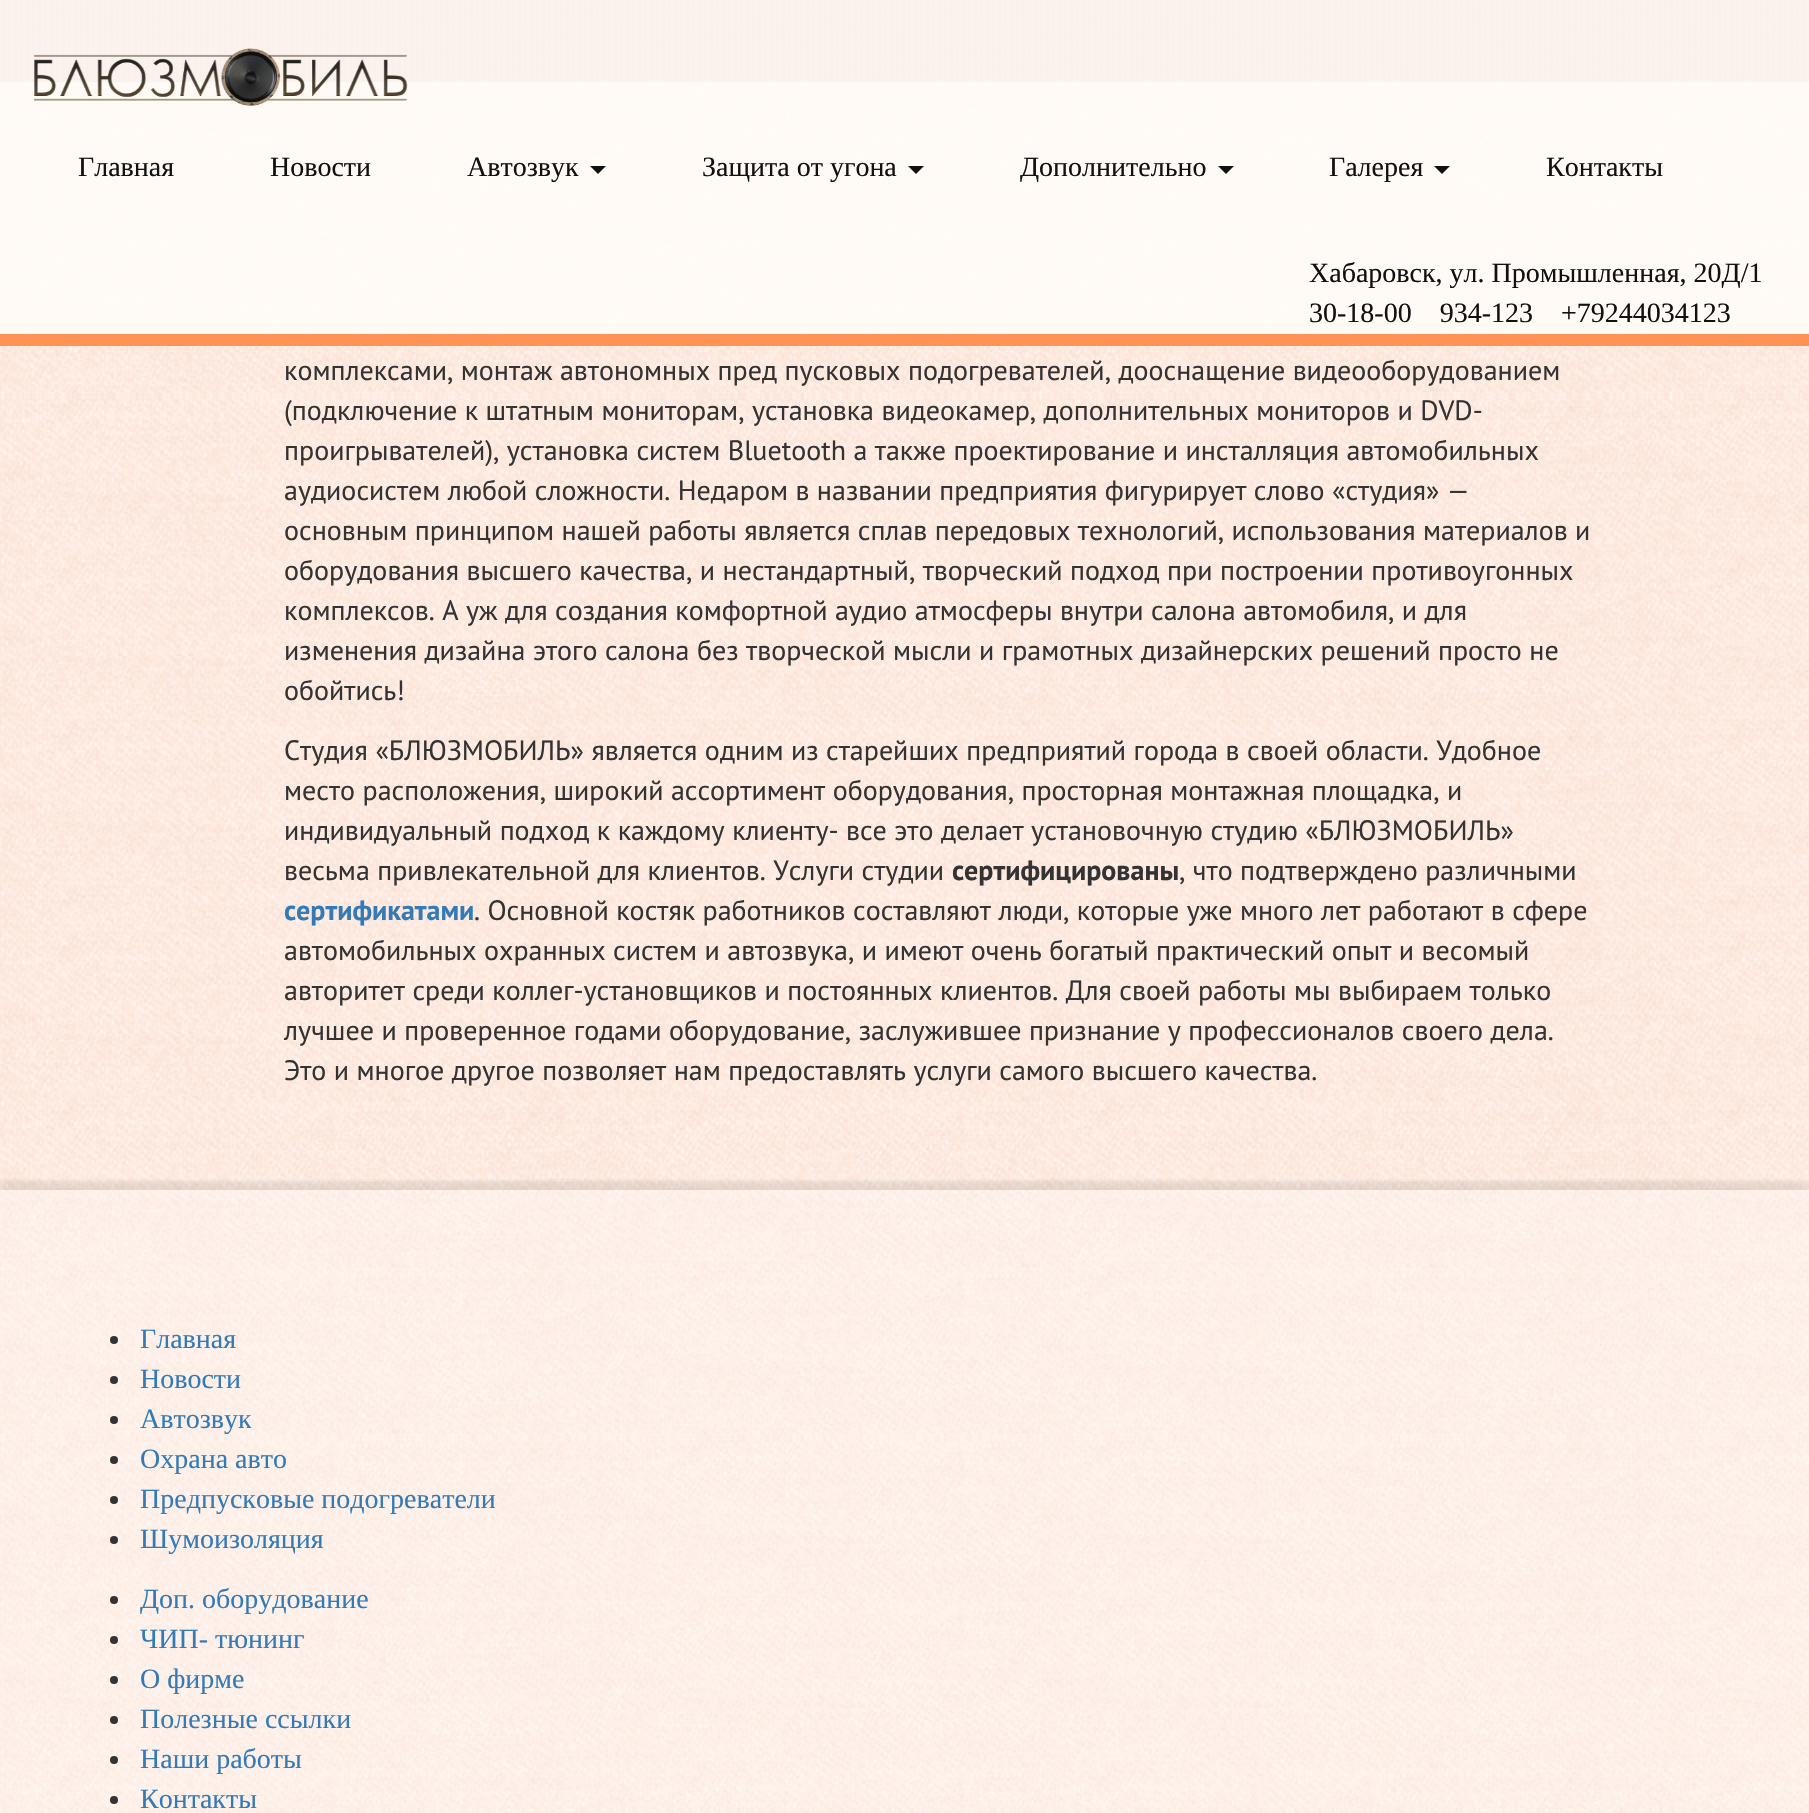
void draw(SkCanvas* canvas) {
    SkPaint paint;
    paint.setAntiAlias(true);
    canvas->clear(0xFFFFFFFF);
    canvas->drawImageRect(SkImages::DeferredFromEncodedData(SkData::MakeFromFileName("img1.png")), SkRect::MakeXYWH(0, 82, 1809, 1731), SkSamplingOptions());
    canvas->drawImageRect(SkImages::DeferredFromEncodedData(SkData::MakeFromFileName("img2.png")), SkRect::MakeXYWH(0, 0, 1809, 82), SkSamplingOptions());
    paint.setColor(0xF2FFFBF7);
    canvas->drawRect(SkRect::MakeXYWH(0, 0, 1809, 346), paint);
    paint.setColor(0xB8FF6916);
    canvas->drawRect(SkRect::MakeXYWH(0, 334, 1809, 12), paint);
    canvas->drawImageRect(SkImages::DeferredFromEncodedData(SkData::MakeFromFileName("img3.png")), SkRect::MakeXYWH(34, 48, 374, 58), SkSamplingOptions());
    SkFont font1(fontMgr->matchFamilyStyle("Liberation Serif", SkFontStyle::Normal()), 28);
    font1.setSubpixel(true);
    paint.setColor(0xFF111111);
    canvas->drawString("Главная", 78, 176, font1, paint);
    canvas->drawString("Новости", 270, 176, font1, paint);
    canvas->drawString("Автозвук", 467, 176, font1, paint);
    canvas->drawPath(SkPathBuilder().moveTo(590, 166).lineTo(606, 166).lineTo(598, 174).close().detach(), paint);
    canvas->drawString("Защита от угона", 702, 176, font1, paint);
    canvas->drawPath(SkPathBuilder().moveTo(908, 166).lineTo(924, 166).lineTo(916, 174).close().detach(), paint);
    canvas->drawString("Дополнительно", 1020, 176, font1, paint);
    canvas->drawPath(SkPathBuilder().moveTo(1218, 166).lineTo(1234, 166).lineTo(1226, 174).close().detach(), paint);
    canvas->drawString("Галерея", 1329, 176, font1, paint);
    canvas->drawPath(SkPathBuilder().moveTo(1434, 166).lineTo(1450, 166).lineTo(1442, 174).close().detach(), paint);
    canvas->drawString("Контакты", 1546, 176, font1, paint);
    canvas->drawString("Хабаровск, ул. Промышленная, 20Д/1", 1309, 282, font1, paint);
    canvas->drawString("30-18-00    934-123    +79244034123", 1309, 322, font1, paint);
    SkFont font2(fontMgr->matchFamilyStyle("PT Sans", SkFontStyle::Normal()), 28);
    font2.setSubpixel(true);
    paint.setColor(0xFF333333);
    canvas->drawString("комплексами, монтаж автономных пред пусковых подогревателей, дооснащение видеооборудованием", 284, 380, font2, paint);
    canvas->drawString("(подключение к штатным мониторам, установка видеокамер, дополнительных мониторов и DVD-", 284, 420, font2, paint);
    canvas->drawString("проигрывателей), установка систем Bluetooth а также проектирование и инсталляция автомобильных", 284, 460, font2, paint);
    canvas->drawString("аудиосистем любой сложности. Недаром в названии предприятия фигурирует слово «студия» —", 284, 500, font2, paint);
    canvas->drawString("основным принципом нашей работы является сплав передовых технологий, использования материалов и", 284, 540, font2, paint);
    canvas->drawString("оборудования высшего качества, и нестандартный, творческий подход при построении противоугонных", 284, 580, font2, paint);
    canvas->drawString("комплексов. А уж для создания комфортной аудио атмосферы внутри салона автомобиля, и для", 284, 620, font2, paint);
    canvas->drawString("изменения дизайна этого салона без творческой мысли и грамотных дизайнерских решений просто не", 284, 660, font2, paint);
    canvas->drawString("обойтись!", 284, 700, font2, paint);
    canvas->drawString("Студия «БЛЮЗМОБИЛЬ» является одним из старейших предприятий города в своей области. Удобное", 284, 760, font2, paint);
    canvas->drawString("место расположения, широкий ассортимент оборудования, просторная монтажная площадка, и", 284, 800, font2, paint);
    canvas->drawString("индивидуальный подход к каждому клиенту- все это делает установочную студию «БЛЮЗМОБИЛЬ»", 284, 840, font2, paint);
    canvas->drawString("весьма привлекательной для клиентов. Услуги студии", 284, 880, font2, paint);
    SkFont font3(fontMgr->matchFamilyStyle("PT Sans", SkFontStyle::Bold()), 28);
    font3.setSubpixel(true);
    canvas->drawString("сертифицированы", 952, 880, font3, paint);
    canvas->drawString(", что подтверждено различными", 1179, 880, font2, paint);
    paint.setColor(0xFF337AB7);
    canvas->drawString("сертификатами", 284, 920, font3, paint);
    paint.setColor(0xFF333333);
    canvas->drawString(". Основной костяк работников составляют люди, которые уже много лет работают в сфере", 474, 920, font2, paint);
    canvas->drawString("автомобильных охранных систем и автозвука, и имеют очень богатый практический опыт и весомый", 284, 960, font2, paint);
    canvas->drawString("авторитет среди коллег-установщиков и постоянных клиентов. Для своей работы мы выбираем только", 284, 1000, font2, paint);
    canvas->drawString("лучшее и проверенное годами оборудование, заслужившее признание у профессионалов своего дела.", 284, 1040, font2, paint);
    canvas->drawString("Это и многое другое позволяет нам предоставлять услуги самого высшего качества.", 284, 1080, font2, paint);
    canvas->save();
    canvas->clipRect(SkRect::MakeXYWH(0, 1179, 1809, 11));
    paint.setColor(0x0D000000);
    paint.setMaskFilter(SkMaskFilter::MakeBlur(kNormal_SkBlurStyle, 3));
    canvas->drawRect(SkRect::MakeXYWH(0, 1180, 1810, 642), paint);
    paint.setMaskFilter(nullptr);
    canvas->restore();
    canvas->save();
    canvas->clipRect(SkRect::MakeXYWH(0, 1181, 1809, 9));
    paint.setColor(0x14000000);
    paint.setMaskFilter(SkMaskFilter::MakeBlur(kNormal_SkBlurStyle, 10));
    canvas->drawRect(SkRect::MakeXYWH(0, 1188, 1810, 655), paint);
    paint.setMaskFilter(nullptr);
    canvas->restore();
    paint.setColor(0x4AFFFFFF);
    canvas->drawRect(SkRect::MakeXYWH(0, 1190, 1809, 623), paint);
    paint.setColor(0xFF333333);
    canvas->drawCircle(114, 1340, 4, paint);
    paint.setColor(0xFF337AB7);
    canvas->drawString("Главная", 140, 1348, font1, paint);
    paint.setColor(0xFF333333);
    canvas->drawCircle(114, 1380, 4, paint);
    paint.setColor(0xFF337AB7);
    canvas->drawString("Новости", 140, 1388, font1, paint);
    paint.setColor(0xFF333333);
    canvas->drawCircle(114, 1420, 4, paint);
    paint.setColor(0xFF337AB7);
    canvas->drawString("Автозвук", 140, 1428, font1, paint);
    paint.setColor(0xFF333333);
    canvas->drawCircle(114, 1460, 4, paint);
    paint.setColor(0xFF337AB7);
    canvas->drawString("Охрана авто", 140, 1468, font1, paint);
    paint.setColor(0xFF333333);
    canvas->drawCircle(114, 1500, 4, paint);
    paint.setColor(0xFF337AB7);
    canvas->drawString("Предпусковые подогреватели", 140, 1508, font1, paint);
    paint.setColor(0xFF333333);
    canvas->drawCircle(114, 1540, 4, paint);
    paint.setColor(0xFF337AB7);
    canvas->drawString("Шумоизоляция", 140, 1548, font1, paint);
    paint.setColor(0xFF333333);
    canvas->drawCircle(114, 1600, 4, paint);
    paint.setColor(0xFF337AB7);
    canvas->drawString("Доп. оборудование", 140, 1608, font1, paint);
    paint.setColor(0xFF333333);
    canvas->drawCircle(114, 1640, 4, paint);
    paint.setColor(0xFF337AB7);
    canvas->drawString("ЧИП- тюнинг", 140, 1648, font1, paint);
    paint.setColor(0xFF333333);
    canvas->drawCircle(114, 1680, 4, paint);
    paint.setColor(0xFF337AB7);
    canvas->drawString("О фирме", 140, 1688, font1, paint);
    paint.setColor(0xFF333333);
    canvas->drawCircle(114, 1720, 4, paint);
    paint.setColor(0xFF337AB7);
    canvas->drawString("Полезные ссылки", 140, 1728, font1, paint);
    paint.setColor(0xFF333333);
    canvas->drawCircle(114, 1760, 4, paint);
    paint.setColor(0xFF337AB7);
    canvas->drawString("Наши работы", 140, 1768, font1, paint);
    paint.setColor(0xFF333333);
    canvas->drawCircle(114, 1800, 4, paint);
    paint.setColor(0xFF337AB7);
    canvas->drawString("Контакты", 140, 1808, font1, paint);
}
